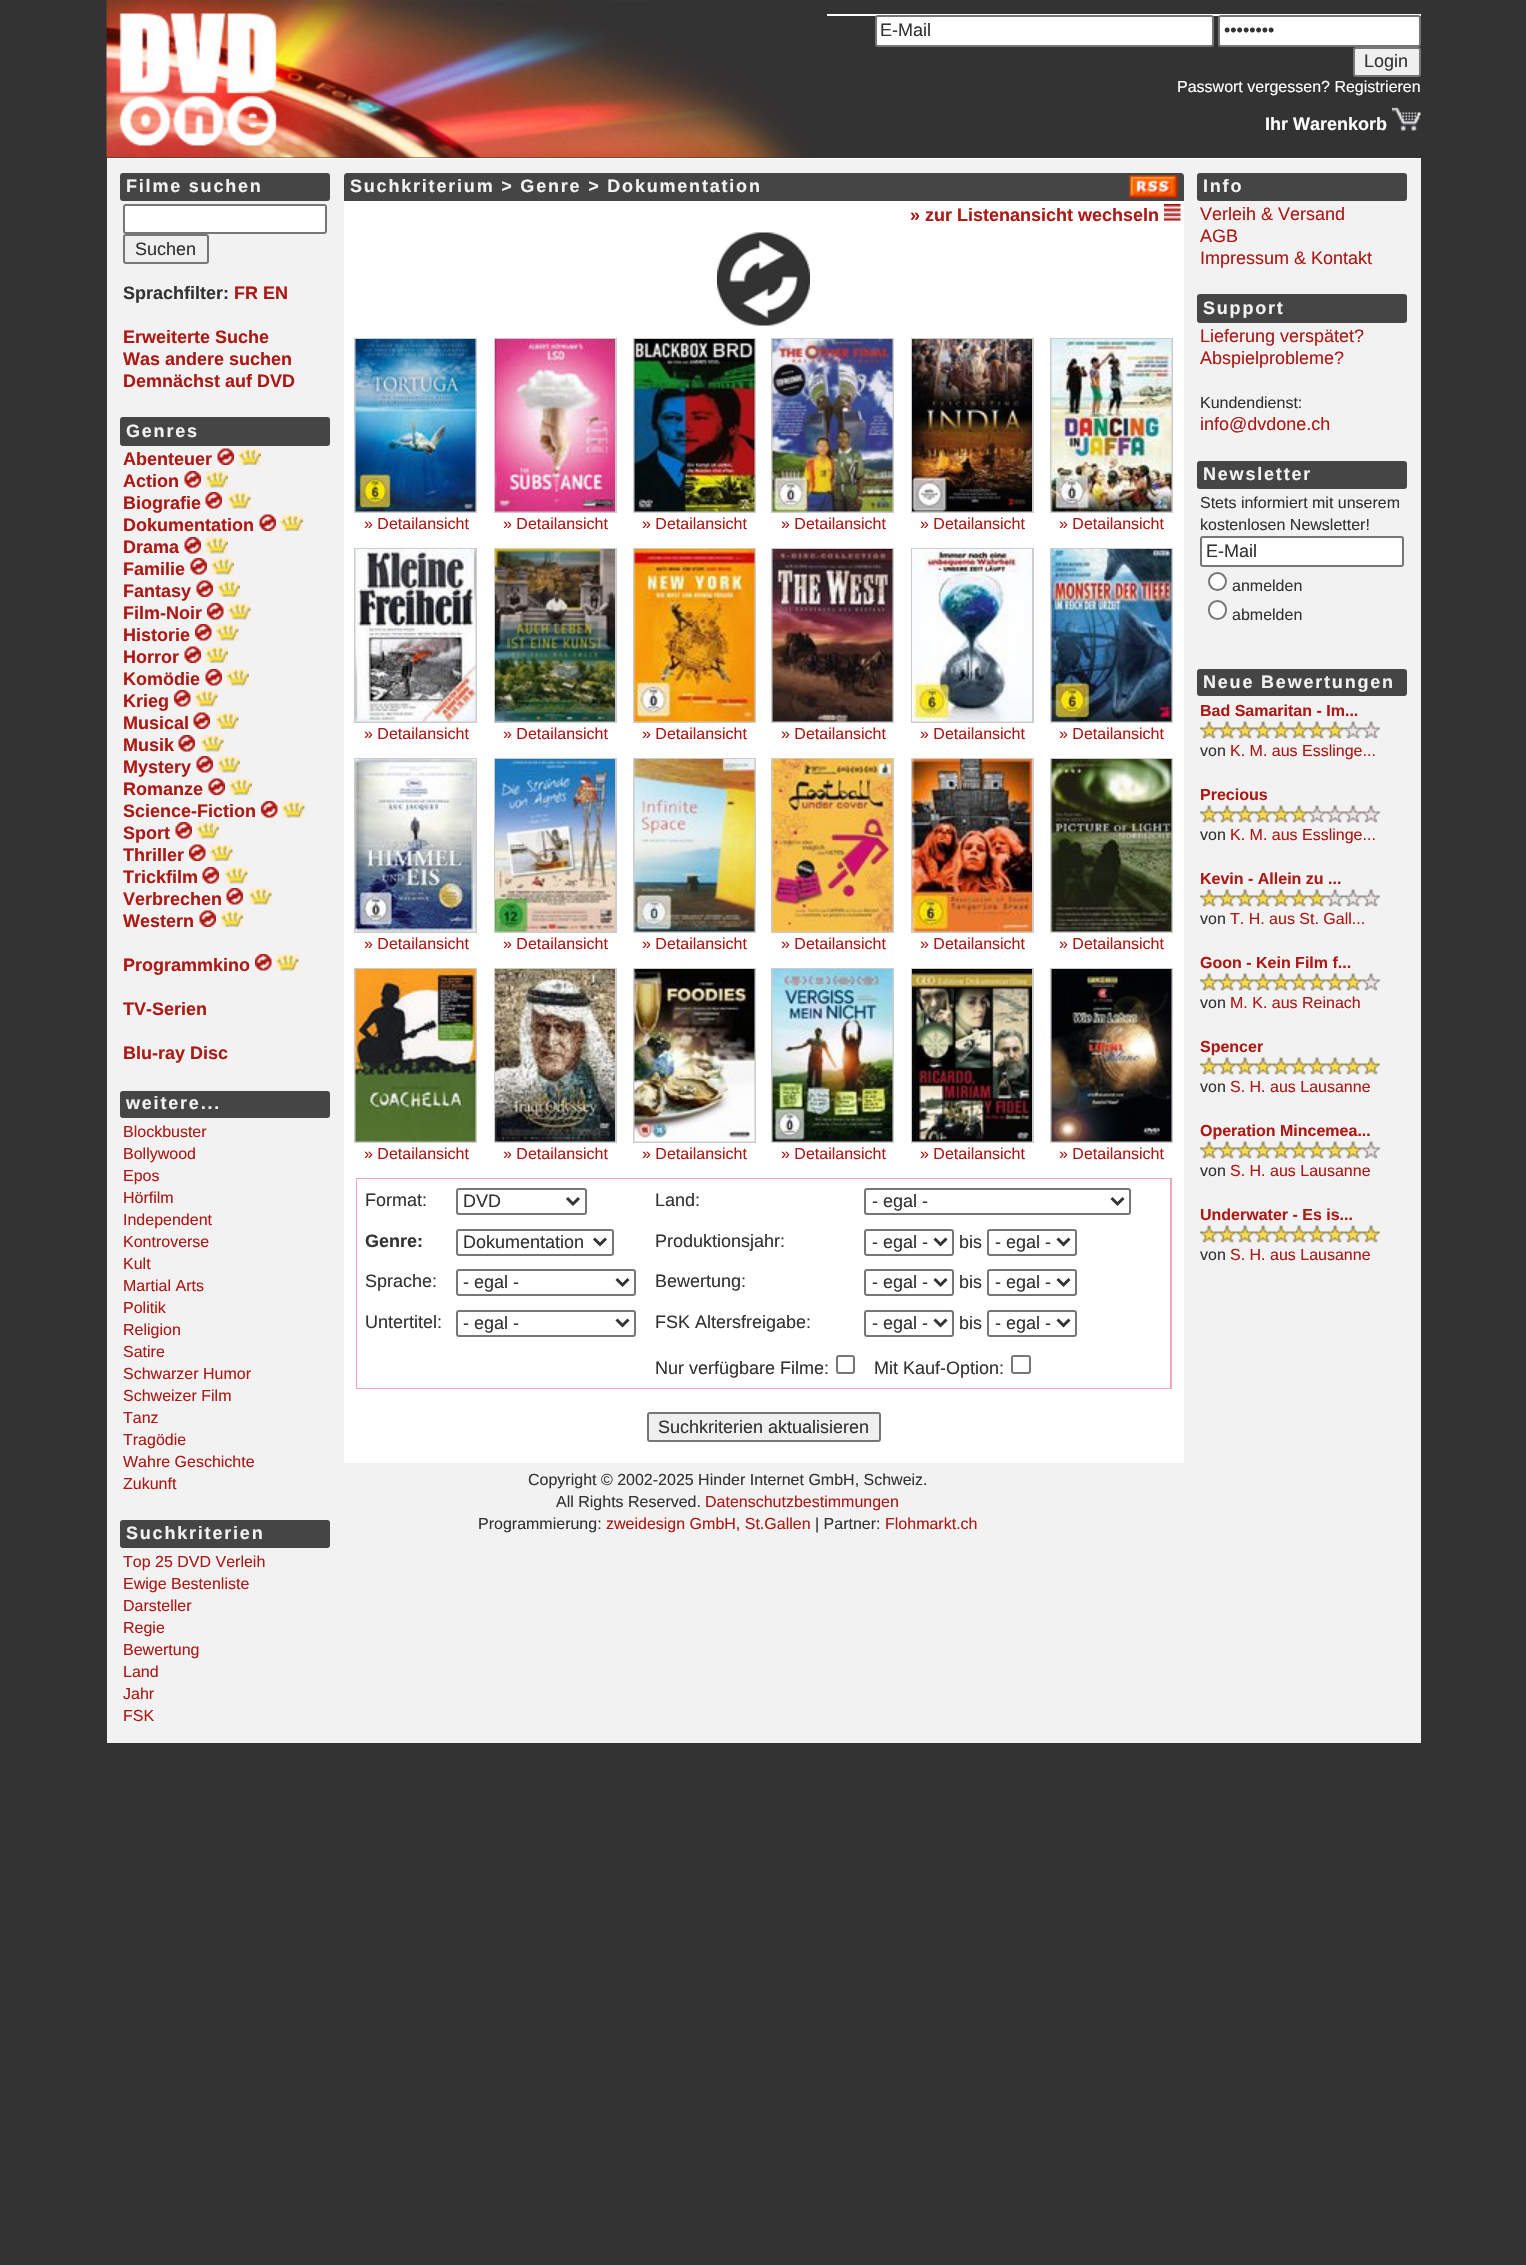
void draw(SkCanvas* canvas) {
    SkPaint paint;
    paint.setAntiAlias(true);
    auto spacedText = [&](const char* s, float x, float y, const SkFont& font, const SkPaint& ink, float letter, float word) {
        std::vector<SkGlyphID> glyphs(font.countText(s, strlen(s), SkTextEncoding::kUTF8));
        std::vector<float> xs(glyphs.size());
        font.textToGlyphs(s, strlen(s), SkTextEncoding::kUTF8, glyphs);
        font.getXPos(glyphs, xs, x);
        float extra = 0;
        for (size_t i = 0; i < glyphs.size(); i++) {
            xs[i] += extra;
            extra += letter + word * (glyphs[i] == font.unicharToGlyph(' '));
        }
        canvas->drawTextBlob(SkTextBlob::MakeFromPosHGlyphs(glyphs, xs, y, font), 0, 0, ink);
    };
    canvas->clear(0xFF333333);
    canvas->drawImageRect(SkImages::DeferredFromEncodedData(SkData::MakeFromFileName("img1.png")), SkRect::MakeXYWH(106, 0, 703, 158), SkSamplingOptions());
    paint.setColor(0xFFFFFFFF);
    canvas->drawRect(SkRect::MakeXYWH(827, 14, 594, 2), paint);
    canvas->drawRoundRect(SkRect::MakeXYWH(876, 16, 337, 30), 2, 2, paint);
    paint.setStyle(SkPaint::kStroke_Style);
    paint.setStrokeWidth(2);
    paint.setColor(0xFF767676);
    canvas->drawRoundRect(SkRect::MakeXYWH(876, 16, 337, 30), 2, 2, paint);
    SkFont font1(fontMgr->matchFamilyStyle("Liberation Sans", SkFontStyle::Normal()), 18);
    font1.setSubpixel(true);
    paint.setStyle(SkPaint::kFill_Style);
    paint.setColor(0xFF333333);
    canvas->drawString("E-Mail", 880, 36, font1, paint);
    paint.setColor(0xFFFFFFFF);
    canvas->drawRoundRect(SkRect::MakeXYWH(1219, 16, 201, 30), 2, 2, paint);
    paint.setStyle(SkPaint::kStroke_Style);
    paint.setColor(0xFF767676);
    canvas->drawRoundRect(SkRect::MakeXYWH(1219, 16, 201, 30), 2, 2, paint);
    paint.setStyle(SkPaint::kFill_Style);
    paint.setColor(0xFF333333);
    canvas->drawString("••••••••", 1224, 36, font1, paint);
    paint.setColor(0xFFEFEFEF);
    canvas->drawRoundRect(SkRect::MakeXYWH(1354, 48, 66, 28), 2, 2, paint);
    paint.setStyle(SkPaint::kStroke_Style);
    paint.setColor(0xFF767676);
    canvas->drawRoundRect(SkRect::MakeXYWH(1354, 48, 66, 28), 2, 2, paint);
    paint.setStyle(SkPaint::kFill_Style);
    paint.setColor(0xFF333333);
    canvas->drawString("Login", 1364, 67, font1, paint);
    SkFont font2(fontMgr->matchFamilyStyle("Liberation Sans", SkFontStyle::Normal()), 16);
    font2.setSubpixel(true);
    paint.setColor(0xFFFFFFFF);
    canvas->drawString("Passwort vergessen? Registrieren", 1177, 92, font2, paint);
    SkFont font3(fontMgr->matchFamilyStyle("Liberation Sans", SkFontStyle::Bold()), 18);
    font3.setSubpixel(true);
    canvas->drawString("Ihr Warenkorb", 1265, 130, font3, paint);
    canvas->drawImageRect(SkImages::DeferredFromEncodedData(SkData::MakeFromFileName("img2.png")), SkRect::MakeXYWH(1392, 107, 29, 24), SkSamplingOptions());
    canvas->drawRect(SkRect::MakeXYWH(107, 158, 1314, 1), paint);
    paint.setColor(0xFFF2F2F2);
    canvas->drawRect(SkRect::MakeXYWH(107, 159, 1314, 1584), paint);
    paint.setColor(0xFF454545);
    canvas->drawRoundRect(SkRect::MakeXYWH(120, 173, 210, 28), 3, 3, paint);
    paint.setColor(0xFFF2F2F2);
    spacedText("Filme suchen", 126, 192, font3, paint, 1.8f, 0);
    paint.setColor(0xFFFFFFFF);
    canvas->drawRoundRect(SkRect::MakeXYWH(124, 205, 202, 28), 2, 2, paint);
    paint.setStyle(SkPaint::kStroke_Style);
    paint.setColor(0xFF767676);
    canvas->drawRoundRect(SkRect::MakeXYWH(124, 205, 202, 28), 2, 2, paint);
    paint.setStyle(SkPaint::kFill_Style);
    paint.setColor(0xFFEFEFEF);
    canvas->drawRoundRect(SkRect::MakeXYWH(124, 235, 84, 28), 2, 2, paint);
    paint.setStyle(SkPaint::kStroke_Style);
    paint.setColor(0xFF767676);
    canvas->drawRoundRect(SkRect::MakeXYWH(124, 235, 84, 28), 2, 2, paint);
    paint.setStyle(SkPaint::kFill_Style);
    paint.setColor(0xFF333333);
    canvas->drawString("Suchen", 135, 255, font1, paint);
    canvas->drawString("Sprachfilter:", 123, 299, font3, paint);
    paint.setColor(0xFFAD1915);
    canvas->drawString("FR EN", 234, 299, font3, paint);
    canvas->drawString("Erweiterte Suche", 123, 343, font3, paint);
    canvas->drawString("Was andere suchen", 123, 365, font3, paint);
    canvas->drawString("Demnächst auf DVD", 123, 387, font3, paint);
    paint.setColor(0xFF454545);
    canvas->drawRoundRect(SkRect::MakeXYWH(120, 417, 210, 29), 3, 3, paint);
    paint.setColor(0xFFF2F2F2);
    spacedText("Genres", 126, 437, font3, paint, 1.8f, 0);
    paint.setColor(0xFFAD1915);
    canvas->drawString("Abenteuer", 123, 465, font3, paint);
    canvas->drawImageRect(SkImages::DeferredFromEncodedData(SkData::MakeFromFileName("img3.png")), SkRect::MakeXYWH(217, 448, 17, 17), SkSamplingOptions());
    canvas->drawImageRect(SkImages::DeferredFromEncodedData(SkData::MakeFromFileName("img4.png")), SkRect::MakeXYWH(238, 448, 23, 17), SkSamplingOptions());
    canvas->drawString("Action", 123, 487, font3, paint);
    canvas->drawImageRect(SkImages::DeferredFromEncodedData(SkData::MakeFromFileName("img5.png")), SkRect::MakeXYWH(184, 471, 17, 17), SkSamplingOptions());
    canvas->drawImageRect(SkImages::DeferredFromEncodedData(SkData::MakeFromFileName("img6.png")), SkRect::MakeXYWH(205, 471, 23, 17), SkSamplingOptions());
    canvas->drawString("Biografie", 123, 509, font3, paint);
    canvas->drawImageRect(SkImages::DeferredFromEncodedData(SkData::MakeFromFileName("img5.png")), SkRect::MakeXYWH(205, 492, 17, 17), SkSamplingOptions());
    canvas->drawImageRect(SkImages::DeferredFromEncodedData(SkData::MakeFromFileName("img7.png")), SkRect::MakeXYWH(228, 492, 23, 17), SkSamplingOptions());
    canvas->drawString("Dokumentation", 123, 531, font3, paint);
    canvas->drawImageRect(SkImages::DeferredFromEncodedData(SkData::MakeFromFileName("img3.png")), SkRect::MakeXYWH(259, 514, 17, 17), SkSamplingOptions());
    canvas->drawImageRect(SkImages::DeferredFromEncodedData(SkData::MakeFromFileName("img8.png")), SkRect::MakeXYWH(280, 514, 23, 17), SkSamplingOptions());
    canvas->drawString("Drama", 123, 553, font3, paint);
    canvas->drawImageRect(SkImages::DeferredFromEncodedData(SkData::MakeFromFileName("img5.png")), SkRect::MakeXYWH(184, 537, 17, 17), SkSamplingOptions());
    canvas->drawImageRect(SkImages::DeferredFromEncodedData(SkData::MakeFromFileName("img6.png")), SkRect::MakeXYWH(205, 537, 23, 17), SkSamplingOptions());
    canvas->drawString("Familie", 123, 575, font3, paint);
    canvas->drawImageRect(SkImages::DeferredFromEncodedData(SkData::MakeFromFileName("img5.png")), SkRect::MakeXYWH(190, 558, 17, 17), SkSamplingOptions());
    canvas->drawImageRect(SkImages::DeferredFromEncodedData(SkData::MakeFromFileName("img6.png")), SkRect::MakeXYWH(211, 558, 23, 17), SkSamplingOptions());
    canvas->drawString("Fantasy", 123, 597, font3, paint);
    canvas->drawImageRect(SkImages::DeferredFromEncodedData(SkData::MakeFromFileName("img3.png")), SkRect::MakeXYWH(196, 580, 17, 17), SkSamplingOptions());
    canvas->drawImageRect(SkImages::DeferredFromEncodedData(SkData::MakeFromFileName("img4.png")), SkRect::MakeXYWH(217, 580, 23, 17), SkSamplingOptions());
    canvas->drawString("Film-Noir", 123, 619, font3, paint);
    canvas->drawImageRect(SkImages::DeferredFromEncodedData(SkData::MakeFromFileName("img9.png")), SkRect::MakeXYWH(207, 603, 17, 17), SkSamplingOptions());
    canvas->drawImageRect(SkImages::DeferredFromEncodedData(SkData::MakeFromFileName("img7.png")), SkRect::MakeXYWH(228, 603, 23, 17), SkSamplingOptions());
    canvas->drawString("Historie", 123, 641, font3, paint);
    canvas->drawImageRect(SkImages::DeferredFromEncodedData(SkData::MakeFromFileName("img9.png")), SkRect::MakeXYWH(195, 624, 17, 17), SkSamplingOptions());
    canvas->drawImageRect(SkImages::DeferredFromEncodedData(SkData::MakeFromFileName("img7.png")), SkRect::MakeXYWH(216, 624, 23, 17), SkSamplingOptions());
    canvas->drawString("Horror", 123, 663, font3, paint);
    canvas->drawImageRect(SkImages::DeferredFromEncodedData(SkData::MakeFromFileName("img3.png")), SkRect::MakeXYWH(184, 646, 17, 17), SkSamplingOptions());
    canvas->drawImageRect(SkImages::DeferredFromEncodedData(SkData::MakeFromFileName("img4.png")), SkRect::MakeXYWH(205, 646, 23, 17), SkSamplingOptions());
    canvas->drawString("Komödie", 123, 685, font3, paint);
    canvas->drawImageRect(SkImages::DeferredFromEncodedData(SkData::MakeFromFileName("img5.png")), SkRect::MakeXYWH(205, 669, 17, 17), SkSamplingOptions());
    canvas->drawImageRect(SkImages::DeferredFromEncodedData(SkData::MakeFromFileName("img6.png")), SkRect::MakeXYWH(226, 669, 23, 17), SkSamplingOptions());
    canvas->drawString("Krieg", 123, 707, font3, paint);
    canvas->drawImageRect(SkImages::DeferredFromEncodedData(SkData::MakeFromFileName("img9.png")), SkRect::MakeXYWH(174, 690, 17, 17), SkSamplingOptions());
    canvas->drawImageRect(SkImages::DeferredFromEncodedData(SkData::MakeFromFileName("img7.png")), SkRect::MakeXYWH(195, 690, 23, 17), SkSamplingOptions());
    canvas->drawString("Musical", 123, 729, font3, paint);
    canvas->drawImageRect(SkImages::DeferredFromEncodedData(SkData::MakeFromFileName("img3.png")), SkRect::MakeXYWH(193, 712, 17, 17), SkSamplingOptions());
    canvas->drawImageRect(SkImages::DeferredFromEncodedData(SkData::MakeFromFileName("img10.png")), SkRect::MakeXYWH(216, 712, 23, 17), SkSamplingOptions());
    canvas->drawString("Musik", 123, 751, font3, paint);
    canvas->drawImageRect(SkImages::DeferredFromEncodedData(SkData::MakeFromFileName("img5.png")), SkRect::MakeXYWH(178, 735, 17, 17), SkSamplingOptions());
    canvas->drawImageRect(SkImages::DeferredFromEncodedData(SkData::MakeFromFileName("img7.png")), SkRect::MakeXYWH(201, 735, 23, 17), SkSamplingOptions());
    canvas->drawString("Mystery", 123, 773, font3, paint);
    canvas->drawImageRect(SkImages::DeferredFromEncodedData(SkData::MakeFromFileName("img5.png")), SkRect::MakeXYWH(196, 756, 17, 17), SkSamplingOptions());
    canvas->drawImageRect(SkImages::DeferredFromEncodedData(SkData::MakeFromFileName("img6.png")), SkRect::MakeXYWH(217, 756, 23, 17), SkSamplingOptions());
    canvas->drawString("Romanze", 123, 795, font3, paint);
    canvas->drawImageRect(SkImages::DeferredFromEncodedData(SkData::MakeFromFileName("img3.png")), SkRect::MakeXYWH(208, 778, 17, 17), SkSamplingOptions());
    canvas->drawImageRect(SkImages::DeferredFromEncodedData(SkData::MakeFromFileName("img4.png")), SkRect::MakeXYWH(229, 778, 23, 17), SkSamplingOptions());
    canvas->drawString("Science-Fiction", 123, 817, font3, paint);
    canvas->drawImageRect(SkImages::DeferredFromEncodedData(SkData::MakeFromFileName("img11.png")), SkRect::MakeXYWH(261, 801, 17, 17), SkSamplingOptions());
    canvas->drawImageRect(SkImages::DeferredFromEncodedData(SkData::MakeFromFileName("img12.png")), SkRect::MakeXYWH(282, 801, 23, 17), SkSamplingOptions());
    canvas->drawString("Sport", 123, 839, font3, paint);
    canvas->drawImageRect(SkImages::DeferredFromEncodedData(SkData::MakeFromFileName("img5.png")), SkRect::MakeXYWH(175, 822, 17, 17), SkSamplingOptions());
    canvas->drawImageRect(SkImages::DeferredFromEncodedData(SkData::MakeFromFileName("img6.png")), SkRect::MakeXYWH(196, 822, 23, 17), SkSamplingOptions());
    canvas->drawString("Thriller", 123, 861, font3, paint);
    canvas->drawImageRect(SkImages::DeferredFromEncodedData(SkData::MakeFromFileName("img13.png")), SkRect::MakeXYWH(189, 844, 17, 17), SkSamplingOptions());
    canvas->drawImageRect(SkImages::DeferredFromEncodedData(SkData::MakeFromFileName("img10.png")), SkRect::MakeXYWH(210, 844, 23, 17), SkSamplingOptions());
    canvas->drawString("Trickfilm", 123, 883, font3, paint);
    canvas->drawImageRect(SkImages::DeferredFromEncodedData(SkData::MakeFromFileName("img5.png")), SkRect::MakeXYWH(202, 867, 17, 17), SkSamplingOptions());
    canvas->drawImageRect(SkImages::DeferredFromEncodedData(SkData::MakeFromFileName("img7.png")), SkRect::MakeXYWH(225, 867, 23, 17), SkSamplingOptions());
    canvas->drawString("Verbrechen", 123, 905, font3, paint);
    canvas->drawImageRect(SkImages::DeferredFromEncodedData(SkData::MakeFromFileName("img5.png")), SkRect::MakeXYWH(226, 888, 17, 17), SkSamplingOptions());
    canvas->drawImageRect(SkImages::DeferredFromEncodedData(SkData::MakeFromFileName("img7.png")), SkRect::MakeXYWH(249, 888, 23, 17), SkSamplingOptions());
    canvas->drawString("Western", 123, 927, font3, paint);
    canvas->drawImageRect(SkImages::DeferredFromEncodedData(SkData::MakeFromFileName("img3.png")), SkRect::MakeXYWH(199, 910, 17, 17), SkSamplingOptions());
    canvas->drawImageRect(SkImages::DeferredFromEncodedData(SkData::MakeFromFileName("img4.png")), SkRect::MakeXYWH(220, 910, 23, 17), SkSamplingOptions());
    canvas->drawString("Programmkino", 123, 971, font3, paint);
    canvas->drawImageRect(SkImages::DeferredFromEncodedData(SkData::MakeFromFileName("img9.png")), SkRect::MakeXYWH(255, 954, 17, 17), SkSamplingOptions());
    canvas->drawImageRect(SkImages::DeferredFromEncodedData(SkData::MakeFromFileName("img14.png")), SkRect::MakeXYWH(276, 954, 23, 17), SkSamplingOptions());
    canvas->drawString("TV-Serien", 123, 1015, font3, paint);
    canvas->drawString("Blu-ray Disc", 123, 1059, font3, paint);
    paint.setColor(0xFF454545);
    canvas->drawRoundRect(SkRect::MakeXYWH(120, 1091, 210, 27), 3, 3, paint);
    paint.setColor(0xFFF2F2F2);
    spacedText("weitere...", 126, 1109, font3, paint, 1.8f, 0);
    paint.setColor(0xFFAD1915);
    canvas->drawString("Blockbuster", 123, 1137, font2, paint);
    canvas->drawString("Bollywood", 123, 1159, font2, paint);
    canvas->drawString("Epos", 123, 1181, font2, paint);
    canvas->drawString("Hörfilm", 123, 1203, font2, paint);
    canvas->drawString("Independent", 123, 1225, font2, paint);
    canvas->drawString("Kontroverse", 123, 1247, font2, paint);
    canvas->drawString("Kult", 123, 1269, font2, paint);
    canvas->drawString("Martial Arts", 123, 1291, font2, paint);
    canvas->drawString("Politik", 123, 1313, font2, paint);
    canvas->drawString("Religion", 123, 1335, font2, paint);
    canvas->drawString("Satire", 123, 1357, font2, paint);
    canvas->drawString("Schwarzer Humor", 123, 1379, font2, paint);
    canvas->drawString("Schweizer Film", 123, 1401, font2, paint);
    canvas->drawString("Tanz", 123, 1423, font2, paint);
    canvas->drawString("Tragödie", 123, 1445, font2, paint);
    canvas->drawString("Wahre Geschichte", 123, 1467, font2, paint);
    canvas->drawString("Zukunft", 123, 1489, font2, paint);
    paint.setColor(0xFF454545);
    canvas->drawRoundRect(SkRect::MakeXYWH(120, 1520, 210, 28), 3, 3, paint);
    paint.setColor(0xFFF2F2F2);
    spacedText("Suchkriterien", 126, 1539, font3, paint, 1.8f, 0);
    paint.setColor(0xFFAD1915);
    canvas->drawString("Top 25 DVD Verleih", 123, 1567, font2, paint);
    canvas->drawString("Ewige Bestenliste", 123, 1589, font2, paint);
    canvas->drawString("Darsteller", 123, 1611, font2, paint);
    canvas->drawString("Regie", 123, 1633, font2, paint);
    canvas->drawString("Bewertung", 123, 1655, font2, paint);
    canvas->drawString("Land", 123, 1677, font2, paint);
    canvas->drawString("Jahr", 123, 1699, font2, paint);
    canvas->drawString("FSK", 123, 1721, font2, paint);
    paint.setColor(0xFF454545);
    canvas->drawPath(SkPathBuilder().moveTo(347, 173).lineTo(1112, 173).lineTo(1112, 201).lineTo(344, 201).lineTo(344, 176).cubicTo(344, 174.5f, 345.5f, 173, 347, 173).close().detach(), paint);
    paint.setColor(0xFFF2F2F2);
    spacedText("Suchkriterium > Genre > Dokumentation", 350, 192, font3, paint, 1.8f, 0);
    paint.setColor(0xFF454545);
    canvas->drawPath(SkPathBuilder().moveTo(1112, 173).lineTo(1181, 173).cubicTo(1182.5f, 173, 1184, 174.5f, 1184, 176).lineTo(1184, 201).lineTo(1112, 201).close().detach(), paint);
    canvas->drawImageRect(SkImages::DeferredFromEncodedData(SkData::MakeFromFileName("img15.png")), SkRect::MakeXYWH(1129, 175, 49, 23), SkSamplingOptions());
    paint.setColor(0xFFFFFFFF);
    canvas->drawRect(SkRect::MakeXYWH(344, 201, 840, 1262), paint);
    paint.setColor(0xFFAD1915);
    canvas->drawString("» zur Listenansicht wechseln", 910, 221, font3, paint);
    canvas->drawImageRect(SkImages::DeferredFromEncodedData(SkData::MakeFromFileName("img16.png")), SkRect::MakeXYWH(1164, 204, 17, 17), SkSamplingOptions());
    canvas->drawImageRect(SkImages::DeferredFromEncodedData(SkData::MakeFromFileName("img17.png")), SkRect::MakeXYWH(717, 232, 93, 94), SkSamplingOptions());
    paint.setStyle(SkPaint::kStroke_Style);
    paint.setColor(0xFFCCCCCC);
    canvas->drawRect(SkRect::MakeXYWH(355, 339, 121, 173), paint);
    canvas->drawImageRect(SkImages::DeferredFromEncodedData(SkData::MakeFromFileName("img18.png")), SkRect::MakeXYWH(355, 339, 121, 173), SkSamplingOptions());
    paint.setStyle(SkPaint::kFill_Style);
    paint.setColor(0xFFAD1915);
    canvas->drawString("» Detailansicht", 364, 529, font2, paint);
    paint.setStyle(SkPaint::kStroke_Style);
    paint.setColor(0xFFCCCCCC);
    canvas->drawRect(SkRect::MakeXYWH(495, 339, 121, 173), paint);
    canvas->drawImageRect(SkImages::DeferredFromEncodedData(SkData::MakeFromFileName("img19.png")), SkRect::MakeXYWH(495, 339, 120, 173), SkSamplingOptions());
    paint.setStyle(SkPaint::kFill_Style);
    paint.setColor(0xFFAD1915);
    canvas->drawString("» Detailansicht", 503, 529, font2, paint);
    paint.setStyle(SkPaint::kStroke_Style);
    paint.setColor(0xFFCCCCCC);
    canvas->drawRect(SkRect::MakeXYWH(634, 339, 121, 173), paint);
    canvas->drawImageRect(SkImages::DeferredFromEncodedData(SkData::MakeFromFileName("img20.png")), SkRect::MakeXYWH(634, 339, 121, 173), SkSamplingOptions());
    paint.setStyle(SkPaint::kFill_Style);
    paint.setColor(0xFFAD1915);
    canvas->drawString("» Detailansicht", 642, 529, font2, paint);
    paint.setStyle(SkPaint::kStroke_Style);
    paint.setColor(0xFFCCCCCC);
    canvas->drawRect(SkRect::MakeXYWH(772, 339, 121, 173), paint);
    canvas->drawImageRect(SkImages::DeferredFromEncodedData(SkData::MakeFromFileName("img21.png")), SkRect::MakeXYWH(772, 339, 121, 173), SkSamplingOptions());
    paint.setStyle(SkPaint::kFill_Style);
    paint.setColor(0xFFAD1915);
    canvas->drawString("» Detailansicht", 781, 529, font2, paint);
    paint.setStyle(SkPaint::kStroke_Style);
    paint.setColor(0xFFCCCCCC);
    canvas->drawRect(SkRect::MakeXYWH(912, 339, 121, 173), paint);
    canvas->drawImageRect(SkImages::DeferredFromEncodedData(SkData::MakeFromFileName("img22.png")), SkRect::MakeXYWH(912, 339, 120, 173), SkSamplingOptions());
    paint.setStyle(SkPaint::kFill_Style);
    paint.setColor(0xFFAD1915);
    canvas->drawString("» Detailansicht", 920, 529, font2, paint);
    paint.setStyle(SkPaint::kStroke_Style);
    paint.setColor(0xFFCCCCCC);
    canvas->drawRect(SkRect::MakeXYWH(1051, 339, 121, 173), paint);
    canvas->drawImageRect(SkImages::DeferredFromEncodedData(SkData::MakeFromFileName("img23.png")), SkRect::MakeXYWH(1051, 339, 121, 173), SkSamplingOptions());
    paint.setStyle(SkPaint::kFill_Style);
    paint.setColor(0xFFAD1915);
    canvas->drawString("» Detailansicht", 1059, 529, font2, paint);
    paint.setStyle(SkPaint::kStroke_Style);
    paint.setColor(0xFFCCCCCC);
    canvas->drawRect(SkRect::MakeXYWH(355, 549, 121, 173), paint);
    canvas->drawImageRect(SkImages::DeferredFromEncodedData(SkData::MakeFromFileName("img24.png")), SkRect::MakeXYWH(355, 549, 121, 173), SkSamplingOptions());
    paint.setStyle(SkPaint::kFill_Style);
    paint.setColor(0xFFAD1915);
    canvas->drawString("» Detailansicht", 364, 739, font2, paint);
    paint.setStyle(SkPaint::kStroke_Style);
    paint.setColor(0xFFCCCCCC);
    canvas->drawRect(SkRect::MakeXYWH(495, 549, 121, 173), paint);
    canvas->drawImageRect(SkImages::DeferredFromEncodedData(SkData::MakeFromFileName("img25.png")), SkRect::MakeXYWH(495, 549, 120, 173), SkSamplingOptions());
    paint.setStyle(SkPaint::kFill_Style);
    paint.setColor(0xFFAD1915);
    canvas->drawString("» Detailansicht", 503, 739, font2, paint);
    paint.setStyle(SkPaint::kStroke_Style);
    paint.setColor(0xFFCCCCCC);
    canvas->drawRect(SkRect::MakeXYWH(634, 549, 121, 173), paint);
    canvas->drawImageRect(SkImages::DeferredFromEncodedData(SkData::MakeFromFileName("img26.png")), SkRect::MakeXYWH(634, 549, 121, 173), SkSamplingOptions());
    paint.setStyle(SkPaint::kFill_Style);
    paint.setColor(0xFFAD1915);
    canvas->drawString("» Detailansicht", 642, 739, font2, paint);
    paint.setStyle(SkPaint::kStroke_Style);
    paint.setColor(0xFFCCCCCC);
    canvas->drawRect(SkRect::MakeXYWH(772, 549, 121, 173), paint);
    canvas->drawImageRect(SkImages::DeferredFromEncodedData(SkData::MakeFromFileName("img27.png")), SkRect::MakeXYWH(772, 549, 121, 173), SkSamplingOptions());
    paint.setStyle(SkPaint::kFill_Style);
    paint.setColor(0xFFAD1915);
    canvas->drawString("» Detailansicht", 781, 739, font2, paint);
    paint.setStyle(SkPaint::kStroke_Style);
    paint.setColor(0xFFCCCCCC);
    canvas->drawRect(SkRect::MakeXYWH(912, 549, 121, 173), paint);
    canvas->drawImageRect(SkImages::DeferredFromEncodedData(SkData::MakeFromFileName("img28.png")), SkRect::MakeXYWH(912, 549, 120, 173), SkSamplingOptions());
    paint.setStyle(SkPaint::kFill_Style);
    paint.setColor(0xFFAD1915);
    canvas->drawString("» Detailansicht", 920, 739, font2, paint);
    paint.setStyle(SkPaint::kStroke_Style);
    paint.setColor(0xFFCCCCCC);
    canvas->drawRect(SkRect::MakeXYWH(1051, 549, 121, 173), paint);
    canvas->drawImageRect(SkImages::DeferredFromEncodedData(SkData::MakeFromFileName("img29.png")), SkRect::MakeXYWH(1051, 549, 121, 173), SkSamplingOptions());
    paint.setStyle(SkPaint::kFill_Style);
    paint.setColor(0xFFAD1915);
    canvas->drawString("» Detailansicht", 1059, 739, font2, paint);
    paint.setStyle(SkPaint::kStroke_Style);
    paint.setColor(0xFFCCCCCC);
    canvas->drawRect(SkRect::MakeXYWH(355, 759, 121, 173), paint);
    canvas->drawImageRect(SkImages::DeferredFromEncodedData(SkData::MakeFromFileName("img30.png")), SkRect::MakeXYWH(355, 759, 121, 173), SkSamplingOptions());
    paint.setStyle(SkPaint::kFill_Style);
    paint.setColor(0xFFAD1915);
    canvas->drawString("» Detailansicht", 364, 949, font2, paint);
    paint.setStyle(SkPaint::kStroke_Style);
    paint.setColor(0xFFCCCCCC);
    canvas->drawRect(SkRect::MakeXYWH(495, 759, 121, 173), paint);
    canvas->drawImageRect(SkImages::DeferredFromEncodedData(SkData::MakeFromFileName("img31.png")), SkRect::MakeXYWH(495, 759, 120, 173), SkSamplingOptions());
    paint.setStyle(SkPaint::kFill_Style);
    paint.setColor(0xFFAD1915);
    canvas->drawString("» Detailansicht", 503, 949, font2, paint);
    paint.setStyle(SkPaint::kStroke_Style);
    paint.setColor(0xFFCCCCCC);
    canvas->drawRect(SkRect::MakeXYWH(634, 759, 121, 173), paint);
    canvas->drawImageRect(SkImages::DeferredFromEncodedData(SkData::MakeFromFileName("img32.png")), SkRect::MakeXYWH(634, 759, 121, 173), SkSamplingOptions());
    paint.setStyle(SkPaint::kFill_Style);
    paint.setColor(0xFFAD1915);
    canvas->drawString("» Detailansicht", 642, 949, font2, paint);
    paint.setStyle(SkPaint::kStroke_Style);
    paint.setColor(0xFFCCCCCC);
    canvas->drawRect(SkRect::MakeXYWH(772, 759, 121, 173), paint);
    canvas->drawImageRect(SkImages::DeferredFromEncodedData(SkData::MakeFromFileName("img33.png")), SkRect::MakeXYWH(772, 759, 121, 173), SkSamplingOptions());
    paint.setStyle(SkPaint::kFill_Style);
    paint.setColor(0xFFAD1915);
    canvas->drawString("» Detailansicht", 781, 949, font2, paint);
    paint.setStyle(SkPaint::kStroke_Style);
    paint.setColor(0xFFCCCCCC);
    canvas->drawRect(SkRect::MakeXYWH(912, 759, 121, 173), paint);
    canvas->drawImageRect(SkImages::DeferredFromEncodedData(SkData::MakeFromFileName("img34.png")), SkRect::MakeXYWH(912, 759, 120, 173), SkSamplingOptions());
    paint.setStyle(SkPaint::kFill_Style);
    paint.setColor(0xFFAD1915);
    canvas->drawString("» Detailansicht", 920, 949, font2, paint);
    paint.setStyle(SkPaint::kStroke_Style);
    paint.setColor(0xFFCCCCCC);
    canvas->drawRect(SkRect::MakeXYWH(1051, 759, 121, 173), paint);
    canvas->drawImageRect(SkImages::DeferredFromEncodedData(SkData::MakeFromFileName("img35.png")), SkRect::MakeXYWH(1051, 759, 121, 173), SkSamplingOptions());
    paint.setStyle(SkPaint::kFill_Style);
    paint.setColor(0xFFAD1915);
    canvas->drawString("» Detailansicht", 1059, 949, font2, paint);
    paint.setStyle(SkPaint::kStroke_Style);
    paint.setColor(0xFFCCCCCC);
    canvas->drawRect(SkRect::MakeXYWH(355, 969, 121, 173), paint);
    canvas->drawImageRect(SkImages::DeferredFromEncodedData(SkData::MakeFromFileName("img36.png")), SkRect::MakeXYWH(355, 969, 121, 173), SkSamplingOptions());
    paint.setStyle(SkPaint::kFill_Style);
    paint.setColor(0xFFAD1915);
    canvas->drawString("» Detailansicht", 364, 1159, font2, paint);
    paint.setStyle(SkPaint::kStroke_Style);
    paint.setColor(0xFFCCCCCC);
    canvas->drawRect(SkRect::MakeXYWH(495, 969, 121, 173), paint);
    canvas->drawImageRect(SkImages::DeferredFromEncodedData(SkData::MakeFromFileName("img37.png")), SkRect::MakeXYWH(495, 969, 120, 173), SkSamplingOptions());
    paint.setStyle(SkPaint::kFill_Style);
    paint.setColor(0xFFAD1915);
    canvas->drawString("» Detailansicht", 503, 1159, font2, paint);
    paint.setStyle(SkPaint::kStroke_Style);
    paint.setColor(0xFFCCCCCC);
    canvas->drawRect(SkRect::MakeXYWH(634, 969, 121, 173), paint);
    canvas->drawImageRect(SkImages::DeferredFromEncodedData(SkData::MakeFromFileName("img38.png")), SkRect::MakeXYWH(634, 969, 121, 173), SkSamplingOptions());
    paint.setStyle(SkPaint::kFill_Style);
    paint.setColor(0xFFAD1915);
    canvas->drawString("» Detailansicht", 642, 1159, font2, paint);
    paint.setStyle(SkPaint::kStroke_Style);
    paint.setColor(0xFFCCCCCC);
    canvas->drawRect(SkRect::MakeXYWH(772, 969, 121, 173), paint);
    canvas->drawImageRect(SkImages::DeferredFromEncodedData(SkData::MakeFromFileName("img39.png")), SkRect::MakeXYWH(772, 969, 121, 173), SkSamplingOptions());
    paint.setStyle(SkPaint::kFill_Style);
    paint.setColor(0xFFAD1915);
    canvas->drawString("» Detailansicht", 781, 1159, font2, paint);
    paint.setStyle(SkPaint::kStroke_Style);
    paint.setColor(0xFFCCCCCC);
    canvas->drawRect(SkRect::MakeXYWH(912, 969, 121, 173), paint);
    canvas->drawImageRect(SkImages::DeferredFromEncodedData(SkData::MakeFromFileName("img40.png")), SkRect::MakeXYWH(912, 969, 120, 173), SkSamplingOptions());
    paint.setStyle(SkPaint::kFill_Style);
    paint.setColor(0xFFAD1915);
    canvas->drawString("» Detailansicht", 920, 1159, font2, paint);
    paint.setStyle(SkPaint::kStroke_Style);
    paint.setColor(0xFFCCCCCC);
    canvas->drawRect(SkRect::MakeXYWH(1051, 969, 121, 173), paint);
    canvas->drawImageRect(SkImages::DeferredFromEncodedData(SkData::MakeFromFileName("img41.png")), SkRect::MakeXYWH(1051, 969, 121, 173), SkSamplingOptions());
    paint.setStyle(SkPaint::kFill_Style);
    paint.setColor(0xFFAD1915);
    canvas->drawString("» Detailansicht", 1059, 1159, font2, paint);
    paint.setColor(0xFFEEA9B8);
    canvas->drawRect(SkRect::MakeXYWH(356, 1178, 816, 211), paint);
    paint.setColor(0xFFFFFFFF);
    canvas->drawRect(SkRect::MakeXYWH(357, 1179, 813, 209), paint);
    paint.setColor(0xFF333333);
    canvas->drawString("Format:", 365, 1206, font1, paint);
    paint.setStyle(SkPaint::kStroke_Style);
    paint.setColor(0xFF767676);
    canvas->drawRoundRect(SkRect::MakeXYWH(457, 1189, 129, 25), 2, 2, paint);
    paint.setStrokeWidth(3);
    paint.setColor(0xFF333333);
    canvas->drawPath(SkPathBuilder().moveTo(567, 1198).lineTo(573, 1204).lineTo(579, 1198).detach(), paint);
    paint.setStyle(SkPaint::kFill_Style);
    canvas->drawString("DVD", 463, 1207, font1, paint);
    canvas->drawString("Genre:", 365, 1247, font3, paint);
    paint.setStyle(SkPaint::kStroke_Style);
    paint.setStrokeWidth(2);
    paint.setColor(0xFF767676);
    canvas->drawRoundRect(SkRect::MakeXYWH(457, 1230, 156, 25), 2, 2, paint);
    paint.setStrokeWidth(3);
    paint.setColor(0xFF333333);
    canvas->drawPath(SkPathBuilder().moveTo(594, 1238.5f).lineTo(600, 1244.5f).lineTo(606, 1238.5f).detach(), paint);
    paint.setStyle(SkPaint::kFill_Style);
    canvas->drawString("Dokumentation", 463, 1248, font1, paint);
    canvas->drawString("Sprache:", 365, 1287, font1, paint);
    paint.setStyle(SkPaint::kStroke_Style);
    paint.setStrokeWidth(2);
    paint.setColor(0xFF767676);
    canvas->drawRoundRect(SkRect::MakeXYWH(457, 1270, 178, 25), 2, 2, paint);
    paint.setStrokeWidth(3);
    paint.setColor(0xFF333333);
    canvas->drawPath(SkPathBuilder().moveTo(616.5f, 1279).lineTo(622.5f, 1285).lineTo(628.5f, 1279).detach(), paint);
    paint.setStyle(SkPaint::kFill_Style);
    canvas->drawString("- egal -", 463, 1288, font1, paint);
    canvas->drawString("Untertitel:", 365, 1328, font1, paint);
    paint.setStyle(SkPaint::kStroke_Style);
    paint.setStrokeWidth(2);
    paint.setColor(0xFF767676);
    canvas->drawRoundRect(SkRect::MakeXYWH(457, 1311, 178, 25), 2, 2, paint);
    paint.setStrokeWidth(3);
    paint.setColor(0xFF333333);
    canvas->drawPath(SkPathBuilder().moveTo(616.5f, 1319.5f).lineTo(622.5f, 1325.5f).lineTo(628.5f, 1319.5f).detach(), paint);
    paint.setStyle(SkPaint::kFill_Style);
    canvas->drawString("- egal -", 463, 1329, font1, paint);
    canvas->drawString("Land:", 655, 1206, font1, paint);
    paint.setStyle(SkPaint::kStroke_Style);
    paint.setStrokeWidth(2);
    paint.setColor(0xFF767676);
    canvas->drawRoundRect(SkRect::MakeXYWH(865, 1189, 265, 25), 2, 2, paint);
    paint.setStrokeWidth(3);
    paint.setColor(0xFF333333);
    canvas->drawPath(SkPathBuilder().moveTo(1111.5f, 1198).lineTo(1117.5f, 1204).lineTo(1123.5f, 1198).detach(), paint);
    paint.setStyle(SkPaint::kFill_Style);
    canvas->drawString("- egal -", 872, 1207, font1, paint);
    canvas->drawString("Produktionsjahr:", 655, 1247, font1, paint);
    paint.setStyle(SkPaint::kStroke_Style);
    paint.setStrokeWidth(2);
    paint.setColor(0xFF767676);
    canvas->drawRoundRect(SkRect::MakeXYWH(865, 1230, 88, 25), 2, 2, paint);
    paint.setStrokeWidth(3);
    paint.setColor(0xFF333333);
    canvas->drawPath(SkPathBuilder().moveTo(934.5f, 1238.5f).lineTo(940.5f, 1244.5f).lineTo(946.5f, 1238.5f).detach(), paint);
    paint.setStyle(SkPaint::kFill_Style);
    canvas->drawString("- egal -", 872, 1248, font1, paint);
    canvas->drawString("bis", 959, 1248, font1, paint);
    paint.setStyle(SkPaint::kStroke_Style);
    paint.setStrokeWidth(2);
    paint.setColor(0xFF767676);
    canvas->drawRoundRect(SkRect::MakeXYWH(988, 1230, 88, 25), 2, 2, paint);
    paint.setStrokeWidth(3);
    paint.setColor(0xFF333333);
    canvas->drawPath(SkPathBuilder().moveTo(1057.5f, 1238.5f).lineTo(1063.5f, 1244.5f).lineTo(1069.5f, 1238.5f).detach(), paint);
    paint.setStyle(SkPaint::kFill_Style);
    canvas->drawString("- egal -", 995, 1248, font1, paint);
    canvas->drawString("Bewertung:", 655, 1287, font1, paint);
    paint.setStyle(SkPaint::kStroke_Style);
    paint.setStrokeWidth(2);
    paint.setColor(0xFF767676);
    canvas->drawRoundRect(SkRect::MakeXYWH(865, 1270, 88, 25), 2, 2, paint);
    paint.setStrokeWidth(3);
    paint.setColor(0xFF333333);
    canvas->drawPath(SkPathBuilder().moveTo(934.5f, 1279).lineTo(940.5f, 1285).lineTo(946.5f, 1279).detach(), paint);
    paint.setStyle(SkPaint::kFill_Style);
    canvas->drawString("- egal -", 872, 1288, font1, paint);
    canvas->drawString("bis", 959, 1288, font1, paint);
    paint.setStyle(SkPaint::kStroke_Style);
    paint.setStrokeWidth(2);
    paint.setColor(0xFF767676);
    canvas->drawRoundRect(SkRect::MakeXYWH(988, 1270, 88, 25), 2, 2, paint);
    paint.setStrokeWidth(3);
    paint.setColor(0xFF333333);
    canvas->drawPath(SkPathBuilder().moveTo(1057.5f, 1279).lineTo(1063.5f, 1285).lineTo(1069.5f, 1279).detach(), paint);
    paint.setStyle(SkPaint::kFill_Style);
    canvas->drawString("- egal -", 995, 1288, font1, paint);
    canvas->drawString("FSK Altersfreigabe:", 655, 1328, font1, paint);
    paint.setStyle(SkPaint::kStroke_Style);
    paint.setStrokeWidth(2);
    paint.setColor(0xFF767676);
    canvas->drawRoundRect(SkRect::MakeXYWH(865, 1311, 88, 25), 2, 2, paint);
    paint.setStrokeWidth(3);
    paint.setColor(0xFF333333);
    canvas->drawPath(SkPathBuilder().moveTo(934.5f, 1319.5f).lineTo(940.5f, 1325.5f).lineTo(946.5f, 1319.5f).detach(), paint);
    paint.setStyle(SkPaint::kFill_Style);
    canvas->drawString("- egal -", 872, 1329, font1, paint);
    canvas->drawString("bis", 959, 1329, font1, paint);
    paint.setStyle(SkPaint::kStroke_Style);
    paint.setStrokeWidth(2);
    paint.setColor(0xFF767676);
    canvas->drawRoundRect(SkRect::MakeXYWH(988, 1311, 88, 25), 2, 2, paint);
    paint.setStrokeWidth(3);
    paint.setColor(0xFF333333);
    canvas->drawPath(SkPathBuilder().moveTo(1057.5f, 1319.5f).lineTo(1063.5f, 1325.5f).lineTo(1069.5f, 1319.5f).detach(), paint);
    paint.setStyle(SkPaint::kFill_Style);
    canvas->drawString("- egal -", 995, 1329, font1, paint);
    canvas->drawString("Nur verfügbare Filme:", 655, 1374, font1, paint);
    paint.setStyle(SkPaint::kStroke_Style);
    paint.setStrokeWidth(2);
    paint.setColor(0xFF767676);
    canvas->drawRoundRect(SkRect::MakeXYWH(837, 1356, 17, 17), 2, 2, paint);
    paint.setStyle(SkPaint::kFill_Style);
    paint.setColor(0xFF333333);
    canvas->drawString("Mit Kauf-Option:", 874, 1374, font1, paint);
    paint.setStyle(SkPaint::kStroke_Style);
    paint.setColor(0xFF767676);
    canvas->drawRoundRect(SkRect::MakeXYWH(1012, 1356, 18, 17), 2, 2, paint);
    paint.setStyle(SkPaint::kFill_Style);
    paint.setColor(0xFFEFEFEF);
    canvas->drawRoundRect(SkRect::MakeXYWH(648, 1413, 232, 28), 2, 2, paint);
    paint.setStyle(SkPaint::kStroke_Style);
    paint.setColor(0xFF767676);
    canvas->drawRoundRect(SkRect::MakeXYWH(648, 1413, 232, 28), 2, 2, paint);
    paint.setStyle(SkPaint::kFill_Style);
    paint.setColor(0xFF333333);
    canvas->drawString("Suchkriterien aktualisieren", 658, 1433, font1, paint);
    canvas->drawString("Copyright © 2002-2025 Hinder Internet GmbH, Schweiz.", 528, 1485, font2, paint);
    canvas->drawString("All Rights Reserved.", 556, 1507, font2, paint);
    paint.setColor(0xFFAD1915);
    canvas->drawString("Datenschutzbestimmungen", 705, 1507, font2, paint);
    paint.setColor(0xFF333333);
    canvas->drawString("Programmierung:", 478, 1529, font2, paint);
    paint.setColor(0xFFAD1915);
    canvas->drawString("zweidesign GmbH, St.Gallen", 606, 1529, font2, paint);
    paint.setColor(0xFF333333);
    canvas->drawString("| Partner:", 815, 1529, font2, paint);
    paint.setColor(0xFFAD1915);
    canvas->drawString("Flohmarkt.ch", 885, 1529, font2, paint);
    paint.setColor(0xFF454545);
    canvas->drawRoundRect(SkRect::MakeXYWH(1197, 173, 210, 28), 3, 3, paint);
    paint.setColor(0xFFF2F2F2);
    spacedText("Info", 1203, 192, font3, paint, 1.8f, 0);
    paint.setColor(0xFFAD1915);
    canvas->drawString("Verleih & Versand", 1200, 220, font1, paint);
    canvas->drawString("AGB", 1200, 242, font1, paint);
    canvas->drawString("Impressum & Kontakt", 1200, 264, font1, paint);
    paint.setColor(0xFF454545);
    canvas->drawRoundRect(SkRect::MakeXYWH(1197, 294, 210, 29), 3, 3, paint);
    paint.setColor(0xFFF2F2F2);
    spacedText("Support", 1203, 314, font3, paint, 1.8f, 0);
    paint.setColor(0xFFAD1915);
    canvas->drawString("Lieferung verspätet?", 1200, 342, font1, paint);
    canvas->drawString("Abspielprobleme?", 1200, 364, font1, paint);
    paint.setColor(0xFF333333);
    canvas->drawString("Kundendienst:", 1200, 408, font2, paint);
    paint.setColor(0xFFAD1915);
    canvas->drawString("info@dvdone.ch", 1200, 430, font1, paint);
    paint.setColor(0xFF454545);
    canvas->drawRoundRect(SkRect::MakeXYWH(1197, 461, 210, 28), 3, 3, paint);
    paint.setColor(0xFFF2F2F2);
    spacedText("Newsletter", 1203, 480, font3, paint, 1.8f, 0);
    paint.setColor(0xFF333333);
    canvas->drawString("Stets informiert mit unserem", 1200, 508, font2, paint);
    canvas->drawString("kostenlosen Newsletter!", 1200, 530, font2, paint);
    paint.setColor(0xFFFFFFFF);
    canvas->drawRoundRect(SkRect::MakeXYWH(1201, 537, 202, 29), 2, 2, paint);
    paint.setStyle(SkPaint::kStroke_Style);
    paint.setColor(0xFF767676);
    canvas->drawRoundRect(SkRect::MakeXYWH(1201, 537, 202, 29), 2, 2, paint);
    paint.setStyle(SkPaint::kFill_Style);
    paint.setColor(0xFF333333);
    canvas->drawString("E-Mail", 1206, 557, font1, paint);
    paint.setColor(0xFFFFFFFF);
    canvas->drawCircle(1217.5f, 581.5f, 8.5f, paint);
    paint.setStyle(SkPaint::kStroke_Style);
    paint.setColor(0xFF767676);
    canvas->drawCircle(1217.5f, 581.5f, 8.5f, paint);
    paint.setStyle(SkPaint::kFill_Style);
    paint.setColor(0xFF333333);
    canvas->drawString("anmelden", 1232, 591, font2, paint);
    paint.setColor(0xFFFFFFFF);
    canvas->drawRoundRect(SkRect::MakeXYWH(1209, 601, 17, 18), 8.5f, 8.5f, paint);
    paint.setStyle(SkPaint::kStroke_Style);
    paint.setColor(0xFF767676);
    canvas->drawRoundRect(SkRect::MakeXYWH(1209, 601, 17, 18), 8.5f, 8.5f, paint);
    paint.setStyle(SkPaint::kFill_Style);
    paint.setColor(0xFF333333);
    canvas->drawString("abmelden", 1232, 620, font2, paint);
    paint.setColor(0xFF454545);
    canvas->drawRoundRect(SkRect::MakeXYWH(1197, 669, 210, 27), 3, 3, paint);
    paint.setColor(0xFFF2F2F2);
    spacedText("Neue Bewertungen", 1203, 688, font3, paint, 1.8f, 0);
    SkFont font4(fontMgr->matchFamilyStyle("Liberation Sans", SkFontStyle::Bold()), 16);
    font4.setSubpixel(true);
    paint.setColor(0xFFAD1915);
    canvas->drawString("Bad Samaritan - Im...", 1200, 716, font4, paint);
    canvas->drawImageRect(SkImages::DeferredFromEncodedData(SkData::MakeFromFileName("img42.png")), SkRect::MakeXYWH(1200, 721, 18, 18), SkSamplingOptions());
    canvas->drawImageRect(SkImages::DeferredFromEncodedData(SkData::MakeFromFileName("img42.png")), SkRect::MakeXYWH(1218, 721, 18, 18), SkSamplingOptions());
    canvas->drawImageRect(SkImages::DeferredFromEncodedData(SkData::MakeFromFileName("img42.png")), SkRect::MakeXYWH(1236, 721, 18, 18), SkSamplingOptions());
    canvas->drawImageRect(SkImages::DeferredFromEncodedData(SkData::MakeFromFileName("img42.png")), SkRect::MakeXYWH(1254, 721, 18, 18), SkSamplingOptions());
    canvas->drawImageRect(SkImages::DeferredFromEncodedData(SkData::MakeFromFileName("img43.png")), SkRect::MakeXYWH(1272, 721, 18, 18), SkSamplingOptions());
    canvas->drawImageRect(SkImages::DeferredFromEncodedData(SkData::MakeFromFileName("img44.png")), SkRect::MakeXYWH(1290, 721, 18, 18), SkSamplingOptions());
    canvas->drawImageRect(SkImages::DeferredFromEncodedData(SkData::MakeFromFileName("img43.png")), SkRect::MakeXYWH(1308, 721, 18, 18), SkSamplingOptions());
    canvas->drawImageRect(SkImages::DeferredFromEncodedData(SkData::MakeFromFileName("img42.png")), SkRect::MakeXYWH(1326, 721, 18, 18), SkSamplingOptions());
    canvas->drawImageRect(SkImages::DeferredFromEncodedData(SkData::MakeFromFileName("img45.png")), SkRect::MakeXYWH(1344, 721, 18, 18), SkSamplingOptions());
    canvas->drawImageRect(SkImages::DeferredFromEncodedData(SkData::MakeFromFileName("img45.png")), SkRect::MakeXYWH(1362, 721, 18, 18), SkSamplingOptions());
    paint.setColor(0xFF333333);
    canvas->drawString("von", 1200, 756, font2, paint);
    paint.setColor(0xFFAD1915);
    canvas->drawString("K. M. aus Esslinge...", 1230, 756, font2, paint);
    canvas->drawString("Precious", 1200, 800, font4, paint);
    canvas->drawImageRect(SkImages::DeferredFromEncodedData(SkData::MakeFromFileName("img42.png")), SkRect::MakeXYWH(1200, 805, 18, 18), SkSamplingOptions());
    canvas->drawImageRect(SkImages::DeferredFromEncodedData(SkData::MakeFromFileName("img42.png")), SkRect::MakeXYWH(1218, 805, 18, 18), SkSamplingOptions());
    canvas->drawImageRect(SkImages::DeferredFromEncodedData(SkData::MakeFromFileName("img42.png")), SkRect::MakeXYWH(1236, 805, 18, 18), SkSamplingOptions());
    canvas->drawImageRect(SkImages::DeferredFromEncodedData(SkData::MakeFromFileName("img42.png")), SkRect::MakeXYWH(1254, 805, 18, 18), SkSamplingOptions());
    canvas->drawImageRect(SkImages::DeferredFromEncodedData(SkData::MakeFromFileName("img43.png")), SkRect::MakeXYWH(1272, 805, 18, 18), SkSamplingOptions());
    canvas->drawImageRect(SkImages::DeferredFromEncodedData(SkData::MakeFromFileName("img44.png")), SkRect::MakeXYWH(1290, 805, 18, 18), SkSamplingOptions());
    canvas->drawImageRect(SkImages::DeferredFromEncodedData(SkData::MakeFromFileName("img46.png")), SkRect::MakeXYWH(1308, 805, 18, 18), SkSamplingOptions());
    canvas->drawImageRect(SkImages::DeferredFromEncodedData(SkData::MakeFromFileName("img45.png")), SkRect::MakeXYWH(1326, 805, 18, 18), SkSamplingOptions());
    canvas->drawImageRect(SkImages::DeferredFromEncodedData(SkData::MakeFromFileName("img45.png")), SkRect::MakeXYWH(1344, 805, 18, 18), SkSamplingOptions());
    canvas->drawImageRect(SkImages::DeferredFromEncodedData(SkData::MakeFromFileName("img45.png")), SkRect::MakeXYWH(1362, 805, 18, 18), SkSamplingOptions());
    paint.setColor(0xFF333333);
    canvas->drawString("von", 1200, 840, font2, paint);
    paint.setColor(0xFFAD1915);
    canvas->drawString("K. M. aus Esslinge...", 1230, 840, font2, paint);
    canvas->drawString("Kevin - Allein zu ...", 1200, 884, font4, paint);
    canvas->drawImageRect(SkImages::DeferredFromEncodedData(SkData::MakeFromFileName("img42.png")), SkRect::MakeXYWH(1200, 889, 18, 18), SkSamplingOptions());
    canvas->drawImageRect(SkImages::DeferredFromEncodedData(SkData::MakeFromFileName("img42.png")), SkRect::MakeXYWH(1218, 889, 18, 18), SkSamplingOptions());
    canvas->drawImageRect(SkImages::DeferredFromEncodedData(SkData::MakeFromFileName("img42.png")), SkRect::MakeXYWH(1236, 889, 18, 18), SkSamplingOptions());
    canvas->drawImageRect(SkImages::DeferredFromEncodedData(SkData::MakeFromFileName("img42.png")), SkRect::MakeXYWH(1254, 889, 18, 18), SkSamplingOptions());
    canvas->drawImageRect(SkImages::DeferredFromEncodedData(SkData::MakeFromFileName("img43.png")), SkRect::MakeXYWH(1272, 889, 18, 18), SkSamplingOptions());
    canvas->drawImageRect(SkImages::DeferredFromEncodedData(SkData::MakeFromFileName("img44.png")), SkRect::MakeXYWH(1290, 889, 18, 18), SkSamplingOptions());
    canvas->drawImageRect(SkImages::DeferredFromEncodedData(SkData::MakeFromFileName("img43.png")), SkRect::MakeXYWH(1308, 889, 18, 18), SkSamplingOptions());
    canvas->drawImageRect(SkImages::DeferredFromEncodedData(SkData::MakeFromFileName("img45.png")), SkRect::MakeXYWH(1326, 889, 18, 18), SkSamplingOptions());
    canvas->drawImageRect(SkImages::DeferredFromEncodedData(SkData::MakeFromFileName("img45.png")), SkRect::MakeXYWH(1344, 889, 18, 18), SkSamplingOptions());
    canvas->drawImageRect(SkImages::DeferredFromEncodedData(SkData::MakeFromFileName("img45.png")), SkRect::MakeXYWH(1362, 889, 18, 18), SkSamplingOptions());
    paint.setColor(0xFF333333);
    canvas->drawString("von", 1200, 924, font2, paint);
    paint.setColor(0xFFAD1915);
    canvas->drawString("T. H. aus St. Gall...", 1230, 924, font2, paint);
    canvas->drawString("Goon - Kein Film f...", 1200, 968, font4, paint);
    canvas->drawImageRect(SkImages::DeferredFromEncodedData(SkData::MakeFromFileName("img42.png")), SkRect::MakeXYWH(1200, 973, 18, 18), SkSamplingOptions());
    canvas->drawImageRect(SkImages::DeferredFromEncodedData(SkData::MakeFromFileName("img42.png")), SkRect::MakeXYWH(1218, 973, 18, 18), SkSamplingOptions());
    canvas->drawImageRect(SkImages::DeferredFromEncodedData(SkData::MakeFromFileName("img42.png")), SkRect::MakeXYWH(1236, 973, 18, 18), SkSamplingOptions());
    canvas->drawImageRect(SkImages::DeferredFromEncodedData(SkData::MakeFromFileName("img42.png")), SkRect::MakeXYWH(1254, 973, 18, 18), SkSamplingOptions());
    canvas->drawImageRect(SkImages::DeferredFromEncodedData(SkData::MakeFromFileName("img43.png")), SkRect::MakeXYWH(1272, 973, 18, 18), SkSamplingOptions());
    canvas->drawImageRect(SkImages::DeferredFromEncodedData(SkData::MakeFromFileName("img44.png")), SkRect::MakeXYWH(1290, 973, 18, 18), SkSamplingOptions());
    canvas->drawImageRect(SkImages::DeferredFromEncodedData(SkData::MakeFromFileName("img43.png")), SkRect::MakeXYWH(1308, 973, 18, 18), SkSamplingOptions());
    canvas->drawImageRect(SkImages::DeferredFromEncodedData(SkData::MakeFromFileName("img42.png")), SkRect::MakeXYWH(1326, 973, 18, 18), SkSamplingOptions());
    canvas->drawImageRect(SkImages::DeferredFromEncodedData(SkData::MakeFromFileName("img42.png")), SkRect::MakeXYWH(1344, 973, 18, 18), SkSamplingOptions());
    canvas->drawImageRect(SkImages::DeferredFromEncodedData(SkData::MakeFromFileName("img45.png")), SkRect::MakeXYWH(1362, 973, 18, 18), SkSamplingOptions());
    paint.setColor(0xFF333333);
    canvas->drawString("von", 1200, 1008, font2, paint);
    paint.setColor(0xFFAD1915);
    canvas->drawString("M. K. aus Reinach", 1230, 1008, font2, paint);
    canvas->drawString("Spencer", 1200, 1052, font4, paint);
    canvas->drawImageRect(SkImages::DeferredFromEncodedData(SkData::MakeFromFileName("img42.png")), SkRect::MakeXYWH(1200, 1057, 18, 18), SkSamplingOptions());
    canvas->drawImageRect(SkImages::DeferredFromEncodedData(SkData::MakeFromFileName("img42.png")), SkRect::MakeXYWH(1218, 1057, 18, 18), SkSamplingOptions());
    canvas->drawImageRect(SkImages::DeferredFromEncodedData(SkData::MakeFromFileName("img42.png")), SkRect::MakeXYWH(1236, 1057, 18, 18), SkSamplingOptions());
    canvas->drawImageRect(SkImages::DeferredFromEncodedData(SkData::MakeFromFileName("img42.png")), SkRect::MakeXYWH(1254, 1057, 18, 18), SkSamplingOptions());
    canvas->drawImageRect(SkImages::DeferredFromEncodedData(SkData::MakeFromFileName("img43.png")), SkRect::MakeXYWH(1272, 1057, 18, 18), SkSamplingOptions());
    canvas->drawImageRect(SkImages::DeferredFromEncodedData(SkData::MakeFromFileName("img44.png")), SkRect::MakeXYWH(1290, 1057, 18, 18), SkSamplingOptions());
    canvas->drawImageRect(SkImages::DeferredFromEncodedData(SkData::MakeFromFileName("img43.png")), SkRect::MakeXYWH(1308, 1057, 18, 18), SkSamplingOptions());
    canvas->drawImageRect(SkImages::DeferredFromEncodedData(SkData::MakeFromFileName("img42.png")), SkRect::MakeXYWH(1326, 1057, 18, 18), SkSamplingOptions());
    canvas->drawImageRect(SkImages::DeferredFromEncodedData(SkData::MakeFromFileName("img42.png")), SkRect::MakeXYWH(1344, 1057, 18, 18), SkSamplingOptions());
    canvas->drawImageRect(SkImages::DeferredFromEncodedData(SkData::MakeFromFileName("img42.png")), SkRect::MakeXYWH(1362, 1057, 18, 18), SkSamplingOptions());
    paint.setColor(0xFF333333);
    canvas->drawString("von", 1200, 1092, font2, paint);
    paint.setColor(0xFFAD1915);
    canvas->drawString("S. H. aus Lausanne", 1230, 1092, font2, paint);
    canvas->drawString("Operation Mincemea...", 1200, 1136, font4, paint);
    canvas->drawImageRect(SkImages::DeferredFromEncodedData(SkData::MakeFromFileName("img42.png")), SkRect::MakeXYWH(1200, 1141, 18, 18), SkSamplingOptions());
    canvas->drawImageRect(SkImages::DeferredFromEncodedData(SkData::MakeFromFileName("img42.png")), SkRect::MakeXYWH(1218, 1141, 18, 18), SkSamplingOptions());
    canvas->drawImageRect(SkImages::DeferredFromEncodedData(SkData::MakeFromFileName("img42.png")), SkRect::MakeXYWH(1236, 1141, 18, 18), SkSamplingOptions());
    canvas->drawImageRect(SkImages::DeferredFromEncodedData(SkData::MakeFromFileName("img42.png")), SkRect::MakeXYWH(1254, 1141, 18, 18), SkSamplingOptions());
    canvas->drawImageRect(SkImages::DeferredFromEncodedData(SkData::MakeFromFileName("img43.png")), SkRect::MakeXYWH(1272, 1141, 18, 18), SkSamplingOptions());
    canvas->drawImageRect(SkImages::DeferredFromEncodedData(SkData::MakeFromFileName("img44.png")), SkRect::MakeXYWH(1290, 1141, 18, 18), SkSamplingOptions());
    canvas->drawImageRect(SkImages::DeferredFromEncodedData(SkData::MakeFromFileName("img43.png")), SkRect::MakeXYWH(1308, 1141, 18, 18), SkSamplingOptions());
    canvas->drawImageRect(SkImages::DeferredFromEncodedData(SkData::MakeFromFileName("img42.png")), SkRect::MakeXYWH(1326, 1141, 18, 18), SkSamplingOptions());
    canvas->drawImageRect(SkImages::DeferredFromEncodedData(SkData::MakeFromFileName("img42.png")), SkRect::MakeXYWH(1344, 1141, 18, 18), SkSamplingOptions());
    canvas->drawImageRect(SkImages::DeferredFromEncodedData(SkData::MakeFromFileName("img45.png")), SkRect::MakeXYWH(1362, 1141, 18, 18), SkSamplingOptions());
    paint.setColor(0xFF333333);
    canvas->drawString("von", 1200, 1176, font2, paint);
    paint.setColor(0xFFAD1915);
    canvas->drawString("S. H. aus Lausanne", 1230, 1176, font2, paint);
    canvas->drawString("Underwater - Es is...", 1200, 1220, font4, paint);
    canvas->drawImageRect(SkImages::DeferredFromEncodedData(SkData::MakeFromFileName("img42.png")), SkRect::MakeXYWH(1200, 1225, 18, 18), SkSamplingOptions());
    canvas->drawImageRect(SkImages::DeferredFromEncodedData(SkData::MakeFromFileName("img42.png")), SkRect::MakeXYWH(1218, 1225, 18, 18), SkSamplingOptions());
    canvas->drawImageRect(SkImages::DeferredFromEncodedData(SkData::MakeFromFileName("img42.png")), SkRect::MakeXYWH(1236, 1225, 18, 18), SkSamplingOptions());
    canvas->drawImageRect(SkImages::DeferredFromEncodedData(SkData::MakeFromFileName("img42.png")), SkRect::MakeXYWH(1254, 1225, 18, 18), SkSamplingOptions());
    canvas->drawImageRect(SkImages::DeferredFromEncodedData(SkData::MakeFromFileName("img43.png")), SkRect::MakeXYWH(1272, 1225, 18, 18), SkSamplingOptions());
    canvas->drawImageRect(SkImages::DeferredFromEncodedData(SkData::MakeFromFileName("img44.png")), SkRect::MakeXYWH(1290, 1225, 18, 18), SkSamplingOptions());
    canvas->drawImageRect(SkImages::DeferredFromEncodedData(SkData::MakeFromFileName("img43.png")), SkRect::MakeXYWH(1308, 1225, 18, 18), SkSamplingOptions());
    canvas->drawImageRect(SkImages::DeferredFromEncodedData(SkData::MakeFromFileName("img42.png")), SkRect::MakeXYWH(1326, 1225, 18, 18), SkSamplingOptions());
    canvas->drawImageRect(SkImages::DeferredFromEncodedData(SkData::MakeFromFileName("img42.png")), SkRect::MakeXYWH(1344, 1225, 18, 18), SkSamplingOptions());
    canvas->drawImageRect(SkImages::DeferredFromEncodedData(SkData::MakeFromFileName("img42.png")), SkRect::MakeXYWH(1362, 1225, 18, 18), SkSamplingOptions());
    paint.setColor(0xFF333333);
    canvas->drawString("von", 1200, 1260, font2, paint);
    paint.setColor(0xFFAD1915);
    canvas->drawString("S. H. aus Lausanne", 1230, 1260, font2, paint);
}
